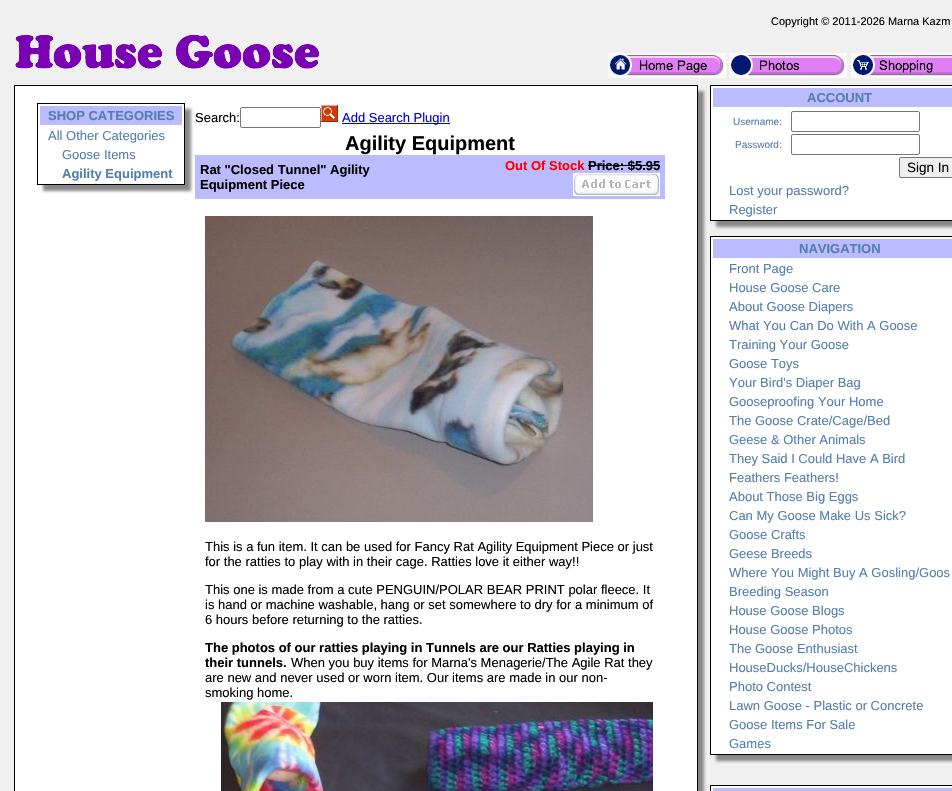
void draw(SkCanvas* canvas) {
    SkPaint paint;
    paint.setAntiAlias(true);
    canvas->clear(0xFFF0F0F0);
    SkFont font1(fontMgr->matchFamilyStyle("Liberation Sans", SkFontStyle::Normal()), 11);
    font1.setSubpixel(true);
    paint.setColor(0xFF000000);
    canvas->drawString("Copyright © 2011-2026 Marna Kazm", 771, 25, font1, paint);
    canvas->drawImageRect(SkImages::DeferredFromEncodedData(SkData::MakeFromFileName("img1.png")), SkRect::MakeXYWH(15, 34, 304, 35), SkSamplingOptions());
    canvas->drawImageRect(SkImages::DeferredFromEncodedData(SkData::MakeFromFileName("img2.png")), SkRect::MakeXYWH(608, 53, 118, 25), SkSamplingOptions());
    canvas->drawImageRect(SkImages::DeferredFromEncodedData(SkData::MakeFromFileName("img3.png")), SkRect::MakeXYWH(729, 53, 118, 25), SkSamplingOptions());
    canvas->drawImageRect(SkImages::DeferredFromEncodedData(SkData::MakeFromFileName("img4.png")), SkRect::MakeXYWH(851, 53, 101, 25), SkSamplingOptions());
    paint.setColor(0xFF888888);
    paint.setMaskFilter(SkMaskFilter::MakeBlur(kNormal_SkBlurStyle, 1.5f));
    canvas->drawRect(SkRect::MakeXYWH(20, 91, 684, 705), paint);
    paint.setMaskFilter(nullptr);
    paint.setColor(0xFFFFFFFF);
    canvas->drawRect(SkRect::MakeXYWH(14.5f, 85.5f, 683, 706), paint);
    paint.setStyle(SkPaint::kStroke_Style);
    paint.setStrokeWidth(1);
    paint.setColor(0xFF000000);
    canvas->drawRect(SkRect::MakeXYWH(14.5f, 85.5f, 683, 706), paint);
    canvas->save();
    canvas->clipPath(SkPathBuilder(SkPathFillType::kEvenOdd).moveTo(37, 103).lineTo(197, 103).lineTo(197, 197).lineTo(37, 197).close().moveTo(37, 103).lineTo(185, 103).lineTo(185, 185).lineTo(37, 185).close().detach(), true);
    paint.setStyle(SkPaint::kFill_Style);
    paint.setColor(0xFF888888);
    paint.setMaskFilter(SkMaskFilter::MakeBlur(kNormal_SkBlurStyle, 1.5f));
    canvas->drawRect(SkRect::MakeXYWH(43, 109, 148, 82), paint);
    paint.setMaskFilter(nullptr);
    canvas->restore();
    paint.setStyle(SkPaint::kStroke_Style);
    paint.setColor(0xFF000000);
    canvas->drawRect(SkRect::MakeXYWH(37.5f, 103.5f, 147, 81), paint);
    paint.setStyle(SkPaint::kFill_Style);
    paint.setColor(0xFFBBBBFF);
    canvas->drawRect(SkRect::MakeXYWH(40, 106, 142, 19), paint);
    SkFont font2(fontMgr->matchFamilyStyle("Liberation Sans", SkFontStyle::Bold()), 13);
    font2.setSubpixel(true);
    paint.setColor(0xFF547EAF);
    canvas->drawString("SHOP CATEGORIES", 48, 120, font2, paint);
    SkFont font3(fontMgr->matchFamilyStyle("Liberation Sans", SkFontStyle::Normal()), 13);
    font3.setSubpixel(true);
    canvas->drawString("All Other Categories", 48, 140, font3, paint);
    canvas->drawString("Goose Items", 62, 159, font3, paint);
    canvas->drawString("Agility Equipment", 62, 178, font2, paint);
    paint.setColor(0xFF000000);
    canvas->drawString("Search:", 195, 122, font3, paint);
    paint.setStyle(SkPaint::kStroke_Style);
    paint.setColor(0xFF767676);
    canvas->drawRoundRect(SkRect::MakeXYWH(240.5f, 107.5f, 80, 20), 1.5f, 1.5f, paint);
    canvas->drawImageRect(SkImages::DeferredFromEncodedData(SkData::MakeFromFileName("img5.png")), SkRect::MakeXYWH(321, 105, 17, 17), SkSamplingOptions());
    paint.setStyle(SkPaint::kFill_Style);
    paint.setColor(0xFF0000EE);
    canvas->drawRect(SkRect::MakeXYWH(342, 123, 108, 1), paint);
    canvas->drawString("Add Search Plugin", 342, 122, font3, paint);
    SkFont font4(fontMgr->matchFamilyStyle("Liberation Sans", SkFontStyle::Bold()), 20);
    font4.setSubpixel(true);
    paint.setColor(0xFF000000);
    canvas->drawString("Agility Equipment", 345, 150, font4, paint);
    paint.setColor(0xFFBBBBFF);
    canvas->drawRect(SkRect::MakeXYWH(195, 155, 470, 44), paint);
    paint.setColor(0xFF000000);
    canvas->drawString("Rat \"Closed Tunnel\" Agility", 200, 174, font2, paint);
    canvas->drawString("Equipment Piece", 200, 189, font2, paint);
    paint.setColor(0xFFFF0000);
    canvas->drawString("Out Of Stock", 505, 170, font2, paint);
    paint.setColor(0xFF000000);
    canvas->drawString("Price: $5.95", 588, 170, font2, paint);
    canvas->drawRect(SkRect::MakeXYWH(588, 165, 72, 1), paint);
    canvas->drawImageRect(SkImages::DeferredFromEncodedData(SkData::MakeFromFileName("img6.png")), SkRect::MakeXYWH(573, 173, 87, 23), SkSamplingOptions());
    canvas->drawImageRect(SkImages::DeferredFromEncodedData(SkData::MakeFromFileName("img7.png")), SkRect::MakeXYWH(205, 216, 388, 306), SkSamplingOptions());
    canvas->drawString("This is a fun item. It can be used for Fancy Rat Agility Equipment Piece or just", 205, 551, font3, paint);
    canvas->drawString("for the ratties to play with in their cage. Ratties love it either way!!", 205, 566, font3, paint);
    canvas->drawString("This one is made from a cute PENGUIN/POLAR BEAR PRINT polar fleece. It", 205, 594, font3, paint);
    canvas->drawString("is hand or machine washable, hang or set somewhere to dry for a minimum of", 205, 609, font3, paint);
    canvas->drawString("6 hours before returning to the ratties.", 205, 624, font3, paint);
    canvas->drawString("The photos of our ratties playing in Tunnels are our Ratties playing in", 205, 652, font2, paint);
    canvas->drawString("their tunnels.", 205, 667, font2, paint);
    canvas->drawString("When you buy items for Marna's Menagerie/The Agile Rat they", 291, 667, font3, paint);
    canvas->drawString("are new and never used or worn item. Our items are made in our non-", 205, 682, font3, paint);
    canvas->drawString("smoking home.", 205, 697, font3, paint);
    canvas->drawImageRect(SkImages::DeferredFromEncodedData(SkData::MakeFromFileName("img8.png")), SkRect::MakeXYWH(221, 702, 432, 89), SkSamplingOptions());
    paint.setColor(0xFF888888);
    paint.setMaskFilter(SkMaskFilter::MakeBlur(kNormal_SkBlurStyle, 1.5f));
    canvas->drawRect(SkRect::MakeXYWH(716, 91, 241, 136), paint);
    paint.setMaskFilter(nullptr);
    paint.setColor(0xFFFFFFFF);
    canvas->drawRect(SkRect::MakeXYWH(710.5f, 85.5f, 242, 135), paint);
    paint.setStyle(SkPaint::kStroke_Style);
    paint.setColor(0xFF000000);
    canvas->drawRect(SkRect::MakeXYWH(710.5f, 85.5f, 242, 135), paint);
    paint.setStyle(SkPaint::kFill_Style);
    paint.setColor(0xFFBBBBFF);
    canvas->drawRect(SkRect::MakeXYWH(713, 88, 239, 19), paint);
    paint.setColor(0xFF547EAF);
    canvas->drawString("ACCOUNT", 807, 102, font2, paint);
    SkFont font5(fontMgr->matchFamilyStyle("Liberation Sans", SkFontStyle::Normal()), 10);
    font5.setSubpixel(true);
    canvas->drawString("Username:", 733, 125, font5, paint);
    paint.setStyle(SkPaint::kStroke_Style);
    paint.setColor(0xFF767676);
    canvas->drawRoundRect(SkRect::MakeXYWH(791.5f, 111.5f, 128, 20), 1.5f, 1.5f, paint);
    paint.setStyle(SkPaint::kFill_Style);
    paint.setColor(0xFF547EAF);
    canvas->drawString("Password:", 735, 148, font5, paint);
    paint.setStyle(SkPaint::kStroke_Style);
    paint.setColor(0xFF767676);
    canvas->drawRoundRect(SkRect::MakeXYWH(791.5f, 134.5f, 128, 20), 1.5f, 1.5f, paint);
    paint.setStyle(SkPaint::kFill_Style);
    paint.setColor(0xFFEFEFEF);
    canvas->drawRoundRect(SkRect::MakeXYWH(899.5f, 157.5f, 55, 20), 1.5f, 1.5f, paint);
    paint.setStyle(SkPaint::kStroke_Style);
    paint.setColor(0xFF767676);
    canvas->drawRoundRect(SkRect::MakeXYWH(899.5f, 157.5f, 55, 20), 1.5f, 1.5f, paint);
    SkFont font6(fontMgr->matchFamilyStyle("Liberation Sans", SkFontStyle::Normal()), 13.5f);
    font6.setSubpixel(true);
    paint.setStyle(SkPaint::kFill_Style);
    paint.setColor(0xFF000000);
    canvas->drawString("Sign In", 907, 172, font6, paint);
    paint.setColor(0xFF547EAF);
    canvas->drawString("Lost your password?", 729, 195, font3, paint);
    canvas->drawString("Register", 729, 214, font3, paint);
    paint.setColor(0xFF888888);
    paint.setMaskFilter(SkMaskFilter::MakeBlur(kNormal_SkBlurStyle, 1.5f));
    canvas->drawRect(SkRect::MakeXYWH(716, 242, 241, 519), paint);
    paint.setMaskFilter(nullptr);
    paint.setColor(0xFFFFFFFF);
    canvas->drawRect(SkRect::MakeXYWH(710.5f, 236.5f, 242, 518), paint);
    paint.setStyle(SkPaint::kStroke_Style);
    paint.setColor(0xFF000000);
    canvas->drawRect(SkRect::MakeXYWH(710.5f, 236.5f, 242, 518), paint);
    paint.setStyle(SkPaint::kFill_Style);
    paint.setColor(0xFFBBBBFF);
    canvas->drawRect(SkRect::MakeXYWH(713, 239, 239, 19), paint);
    paint.setColor(0xFF547EAF);
    canvas->drawString("NAVIGATION", 799, 253, font2, paint);
    canvas->drawString("Front Page", 729, 273, font3, paint);
    canvas->drawString("House Goose Care", 729, 292, font3, paint);
    canvas->drawString("About Goose Diapers", 729, 311, font3, paint);
    canvas->drawString("What You Can Do With A Goose", 729, 330, font3, paint);
    canvas->drawString("Training Your Goose", 729, 349, font3, paint);
    canvas->drawString("Goose Toys", 729, 368, font3, paint);
    canvas->drawString("Your Bird's Diaper Bag", 729, 387, font3, paint);
    canvas->drawString("Gooseproofing Your Home", 729, 406, font3, paint);
    canvas->drawString("The Goose Crate/Cage/Bed", 729, 425, font3, paint);
    canvas->drawString("Geese & Other Animals", 729, 444, font3, paint);
    canvas->drawString("They Said I Could Have A Bird", 729, 463, font3, paint);
    canvas->drawString("Feathers Feathers!", 729, 482, font3, paint);
    canvas->drawString("About Those Big Eggs", 729, 501, font3, paint);
    canvas->drawString("Can My Goose Make Us Sick?", 729, 520, font3, paint);
    canvas->drawString("Goose Crafts", 729, 539, font3, paint);
    canvas->drawString("Geese Breeds", 729, 558, font3, paint);
    canvas->drawString("Where You Might Buy A Gosling/Goos", 729, 577, font3, paint);
    canvas->drawString("Breeding Season", 729, 596, font3, paint);
    canvas->drawString("House Goose Blogs", 729, 615, font3, paint);
    canvas->drawString("House Goose Photos", 729, 634, font3, paint);
    canvas->drawString("The Goose Enthusiast", 729, 653, font3, paint);
    canvas->drawString("HouseDucks/HouseChickens", 729, 672, font3, paint);
    canvas->drawString("Photo Contest", 729, 691, font3, paint);
    canvas->drawString("Lawn Goose - Plastic or Concrete", 729, 710, font3, paint);
    canvas->drawString("Goose Items For Sale", 729, 729, font3, paint);
    canvas->drawString("Games", 729, 748, font3, paint);
    paint.setColor(0xFFFFFFFF);
    canvas->drawRect(SkRect::MakeXYWH(710.5f, 785.5f, 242, 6), paint);
    paint.setStyle(SkPaint::kStroke_Style);
    paint.setColor(0xFF000000);
    canvas->drawRect(SkRect::MakeXYWH(710.5f, 785.5f, 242, 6), paint);
    paint.setStyle(SkPaint::kFill_Style);
    paint.setColor(0xFFBBBBFF);
    canvas->drawRect(SkRect::MakeXYWH(713, 788, 239, 3), paint);
}
